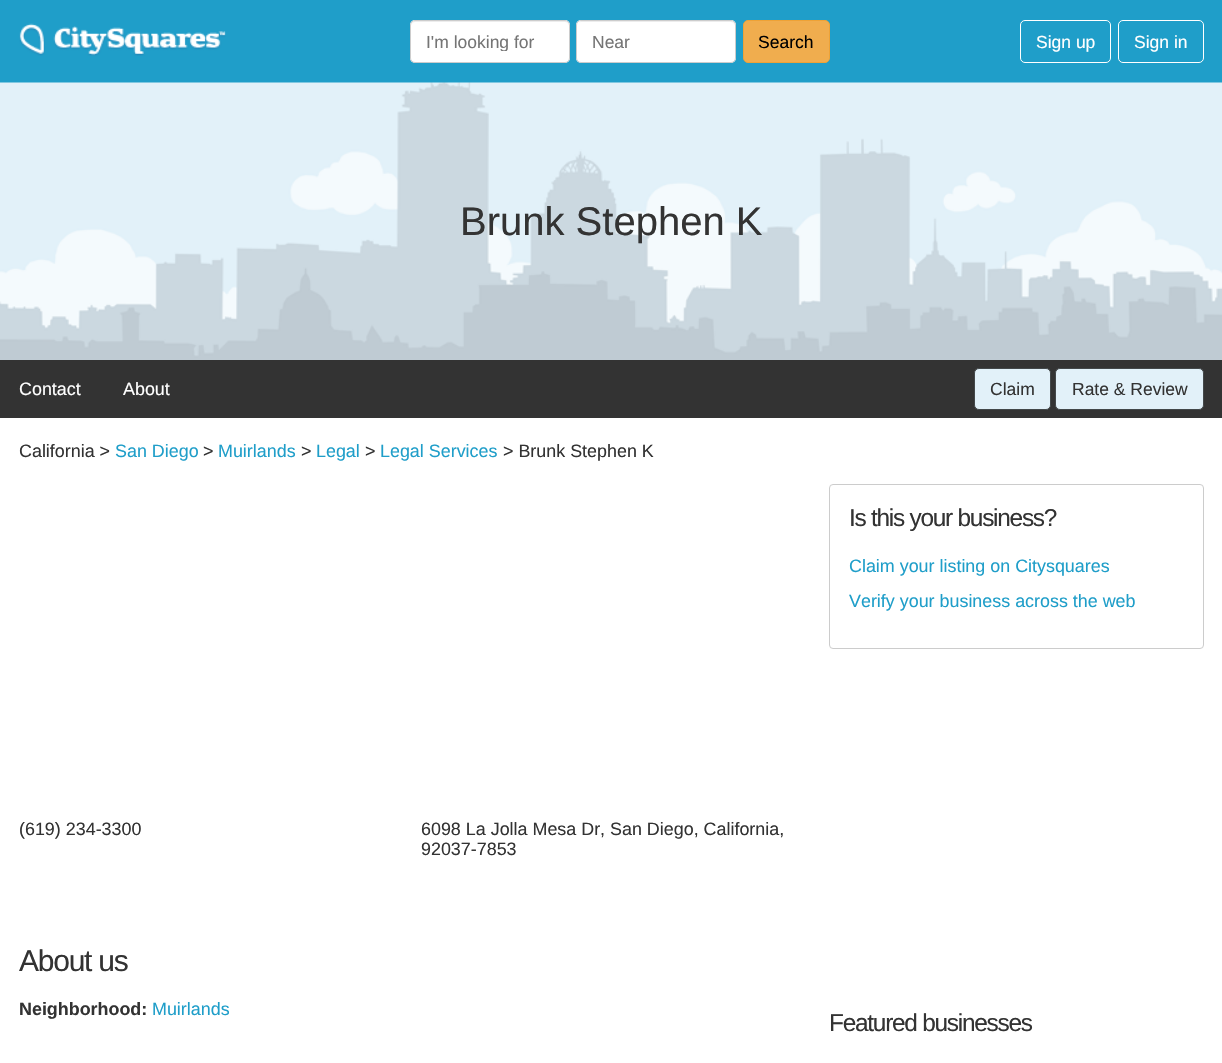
void draw(SkCanvas* canvas) {
    SkPaint paint;
    paint.setAntiAlias(true);
    auto spacedText = [&](const char* s, float x, float y, const SkFont& font, const SkPaint& ink, float letter, float word) {
        std::vector<SkGlyphID> glyphs(font.countText(s, strlen(s), SkTextEncoding::kUTF8));
        std::vector<float> xs(glyphs.size());
        font.textToGlyphs(s, strlen(s), SkTextEncoding::kUTF8, glyphs);
        font.getXPos(glyphs, xs, x);
        float extra = 0;
        for (size_t i = 0; i < glyphs.size(); i++) {
            xs[i] += extra;
            extra += letter + word * (glyphs[i] == font.unicharToGlyph(' '));
        }
        canvas->drawTextBlob(SkTextBlob::MakeFromPosHGlyphs(glyphs, xs, y, font), 0, 0, ink);
    };
    canvas->clear(0xFFFFFFFF);
    paint.setColor(0xFF1F9EC9);
    canvas->drawRect(SkRect::MakeXYWH(0, 0, 1222, 83), paint);
    canvas->drawImageRect(SkImages::DeferredFromEncodedData(SkData::MakeFromFileName("img1.png")), SkRect::MakeXYWH(19, 23, 207, 33), SkSamplingOptions());
    paint.setColor(0xFFFFFFFF);
    canvas->drawRoundRect(SkRect::MakeXYWH(410, 20, 160, 43), 5, 5, paint);
    paint.setColor(0xFFECECEC);
    canvas->drawPath(SkPathBuilder().moveTo(415, 22).lineTo(565, 22).cubicTo(567, 22, 569, 24, 569, 26).cubicTo(569, 24, 568, 22, 566, 21).lineTo(414, 21).cubicTo(412, 22, 411, 24, 411, 26).cubicTo(411, 24, 413, 22, 415, 22).close().detach(), paint);
    paint.setStyle(SkPaint::kStroke_Style);
    paint.setStrokeWidth(1);
    paint.setColor(0xFFCCCCCC);
    canvas->drawRoundRect(SkRect::MakeXYWH(410.5f, 20.5f, 159, 42), 4.5f, 4.5f, paint);
    canvas->save();
    canvas->clipRect(SkRect::MakeXYWH(426, 31, 128, 20));
    SkFont font1(fontMgr->matchFamilyStyle("Liberation Sans", SkFontStyle::Normal()), 17.5f);
    font1.setSubpixel(true);
    paint.setStyle(SkPaint::kFill_Style);
    paint.setColor(0xFF757575);
    canvas->drawString("I'm looking for", 426, 48, font1, paint);
    canvas->restore();
    paint.setColor(0xFFFFFFFF);
    canvas->drawRoundRect(SkRect::MakeXYWH(576, 20, 160, 43), 5, 5, paint);
    paint.setColor(0xFFECECEC);
    canvas->drawPath(SkPathBuilder().moveTo(581, 22).lineTo(731, 22).cubicTo(733, 22, 735, 24, 735, 26).cubicTo(735, 24, 734, 22, 732, 21).lineTo(581, 21).cubicTo(579, 22, 578, 24, 578, 26).cubicTo(578, 24, 579, 22, 581, 22).close().detach(), paint);
    paint.setStyle(SkPaint::kStroke_Style);
    paint.setColor(0xFFCCCCCC);
    canvas->drawRoundRect(SkRect::MakeXYWH(576.5f, 20.5f, 159, 42), 4.5f, 4.5f, paint);
    paint.setStyle(SkPaint::kFill_Style);
    paint.setColor(0xFF757575);
    canvas->drawString("Near", 592, 48, font1, paint);
    paint.setColor(0xFFF0AD4E);
    canvas->drawRoundRect(SkRect::MakeXYWH(743.5f, 20.5f, 86, 42), 4.5f, 4.5f, paint);
    paint.setStyle(SkPaint::kStroke_Style);
    paint.setColor(0xFFEEA236);
    canvas->drawRoundRect(SkRect::MakeXYWH(743.5f, 20.5f, 86, 42), 4.5f, 4.5f, paint);
    paint.setStyle(SkPaint::kFill_Style);
    paint.setColor(0xFF000000);
    canvas->drawString("Search", 758, 48, font1, paint);
    paint.setStyle(SkPaint::kStroke_Style);
    paint.setColor(0xFFFFFFFF);
    canvas->drawRoundRect(SkRect::MakeXYWH(1020.5f, 20.5f, 90, 42), 4.5f, 4.5f, paint);
    paint.setStyle(SkPaint::kFill_Style);
    canvas->drawString("Sign up", 1036, 48, font1, paint);
    paint.setStyle(SkPaint::kStroke_Style);
    canvas->drawRoundRect(SkRect::MakeXYWH(1118.5f, 20.5f, 85, 42), 4.5f, 4.5f, paint);
    paint.setStyle(SkPaint::kFill_Style);
    canvas->drawString("Sign in", 1134, 48, font1, paint);
    canvas->drawImageRect(SkImages::DeferredFromEncodedData(SkData::MakeFromFileName("img2.png")), SkRect::MakeXYWH(0, 82, 1222, 278), SkSamplingOptions());
    SkFont font2(fontMgr->matchFamilyStyle("Liberation Sans", SkFontStyle::Normal()), 40);
    font2.setSubpixel(true);
    paint.setColor(0xFF333333);
    canvas->drawString("Brunk Stephen K", 460, 235, font2, paint);
    canvas->drawRect(SkRect::MakeXYWH(0, 360, 1222, 58), paint);
    SkFont font3(fontMgr->matchFamilyStyle("Liberation Sans", SkFontStyle::Normal()), 17.9f);
    font3.setSubpixel(true);
    paint.setColor(0xFFFFFFFF);
    canvas->drawString("Contact", 19, 395, font3, paint);
    canvas->drawString("About", 123, 395, font3, paint);
    paint.setColor(0xFFE2F1F9);
    canvas->drawRoundRect(SkRect::MakeXYWH(974.5f, 368.5f, 76, 41), 4.5f, 4.5f, paint);
    paint.setStyle(SkPaint::kStroke_Style);
    paint.setColor(0xFF43484A);
    canvas->drawRoundRect(SkRect::MakeXYWH(974.5f, 368.5f, 76, 41), 4.5f, 4.5f, paint);
    paint.setStyle(SkPaint::kFill_Style);
    paint.setColor(0xFF333333);
    canvas->drawString("Claim", 990, 395, font1, paint);
    paint.setColor(0xFFE2F1F9);
    canvas->drawRoundRect(SkRect::MakeXYWH(1055.5f, 368.5f, 148, 41), 4.5f, 4.5f, paint);
    paint.setStyle(SkPaint::kStroke_Style);
    paint.setColor(0xFF43484A);
    canvas->drawRoundRect(SkRect::MakeXYWH(1055.5f, 368.5f, 148, 41), 4.5f, 4.5f, paint);
    paint.setStyle(SkPaint::kFill_Style);
    paint.setColor(0xFF333333);
    canvas->drawString("Rate & Review", 1072, 395, font1, paint);
    canvas->drawString("California >", 19, 457, font3, paint);
    paint.setColor(0xFF1F9EC9);
    canvas->drawString("San Diego", 115, 457, font3, paint);
    paint.setColor(0xFF333333);
    canvas->drawString(">", 203, 457, font3, paint);
    paint.setColor(0xFF1F9EC9);
    canvas->drawString("Muirlands", 218, 457, font3, paint);
    paint.setColor(0xFF333333);
    canvas->drawString(">", 301, 457, font3, paint);
    paint.setColor(0xFF1F9EC9);
    canvas->drawString("Legal", 316, 457, font3, paint);
    paint.setColor(0xFF333333);
    canvas->drawString(">", 365, 457, font3, paint);
    paint.setColor(0xFF1F9EC9);
    canvas->drawString("Legal Services", 380, 457, font3, paint);
    paint.setColor(0xFF333333);
    canvas->drawString("> Brunk Stephen K", 503, 457, font3, paint);
    canvas->drawString("(619) 234-3300", 19, 835, font3, paint);
    canvas->drawString("6098 La Jolla Mesa Dr, San Diego, California,", 421, 835, font3, paint);
    canvas->drawString("92037-7853", 421, 855, font3, paint);
    SkFont font4(fontMgr->matchFamilyStyle("Liberation Sans", SkFontStyle::Normal()), 30);
    font4.setSubpixel(true);
    spacedText("About us", 19, 971, font4, paint, -1.25f, 0);
    SkFont font5(fontMgr->matchFamilyStyle("Liberation Sans", SkFontStyle::Bold()), 17.9f);
    font5.setSubpixel(true);
    canvas->drawString("Neighborhood:", 19, 1015, font5, paint);
    paint.setColor(0xFF1F9EC9);
    canvas->drawString("Muirlands", 152, 1015, font3, paint);
    paint.setStyle(SkPaint::kStroke_Style);
    paint.setColor(0xFFCCCCCC);
    canvas->drawRoundRect(SkRect::MakeXYWH(829.5f, 484.5f, 374, 164), 3.5f, 3.5f, paint);
    SkFont font6(fontMgr->matchFamilyStyle("Liberation Sans", SkFontStyle::Normal()), 24.4f);
    font6.setSubpixel(true);
    paint.setStyle(SkPaint::kFill_Style);
    paint.setColor(0xFF333333);
    spacedText("Is this your business?", 849, 526, font6, paint, -1.25f, 0);
    paint.setColor(0xFF1F9EC9);
    canvas->drawString("Claim your listing on Citysquares", 849, 572, font3, paint);
    canvas->drawString("Verify your business across the web", 849, 607, font3, paint);
    paint.setColor(0xFF333333);
    spacedText("Featured businesses", 829, 1031, font6, paint, -1.25f, 0);
}
